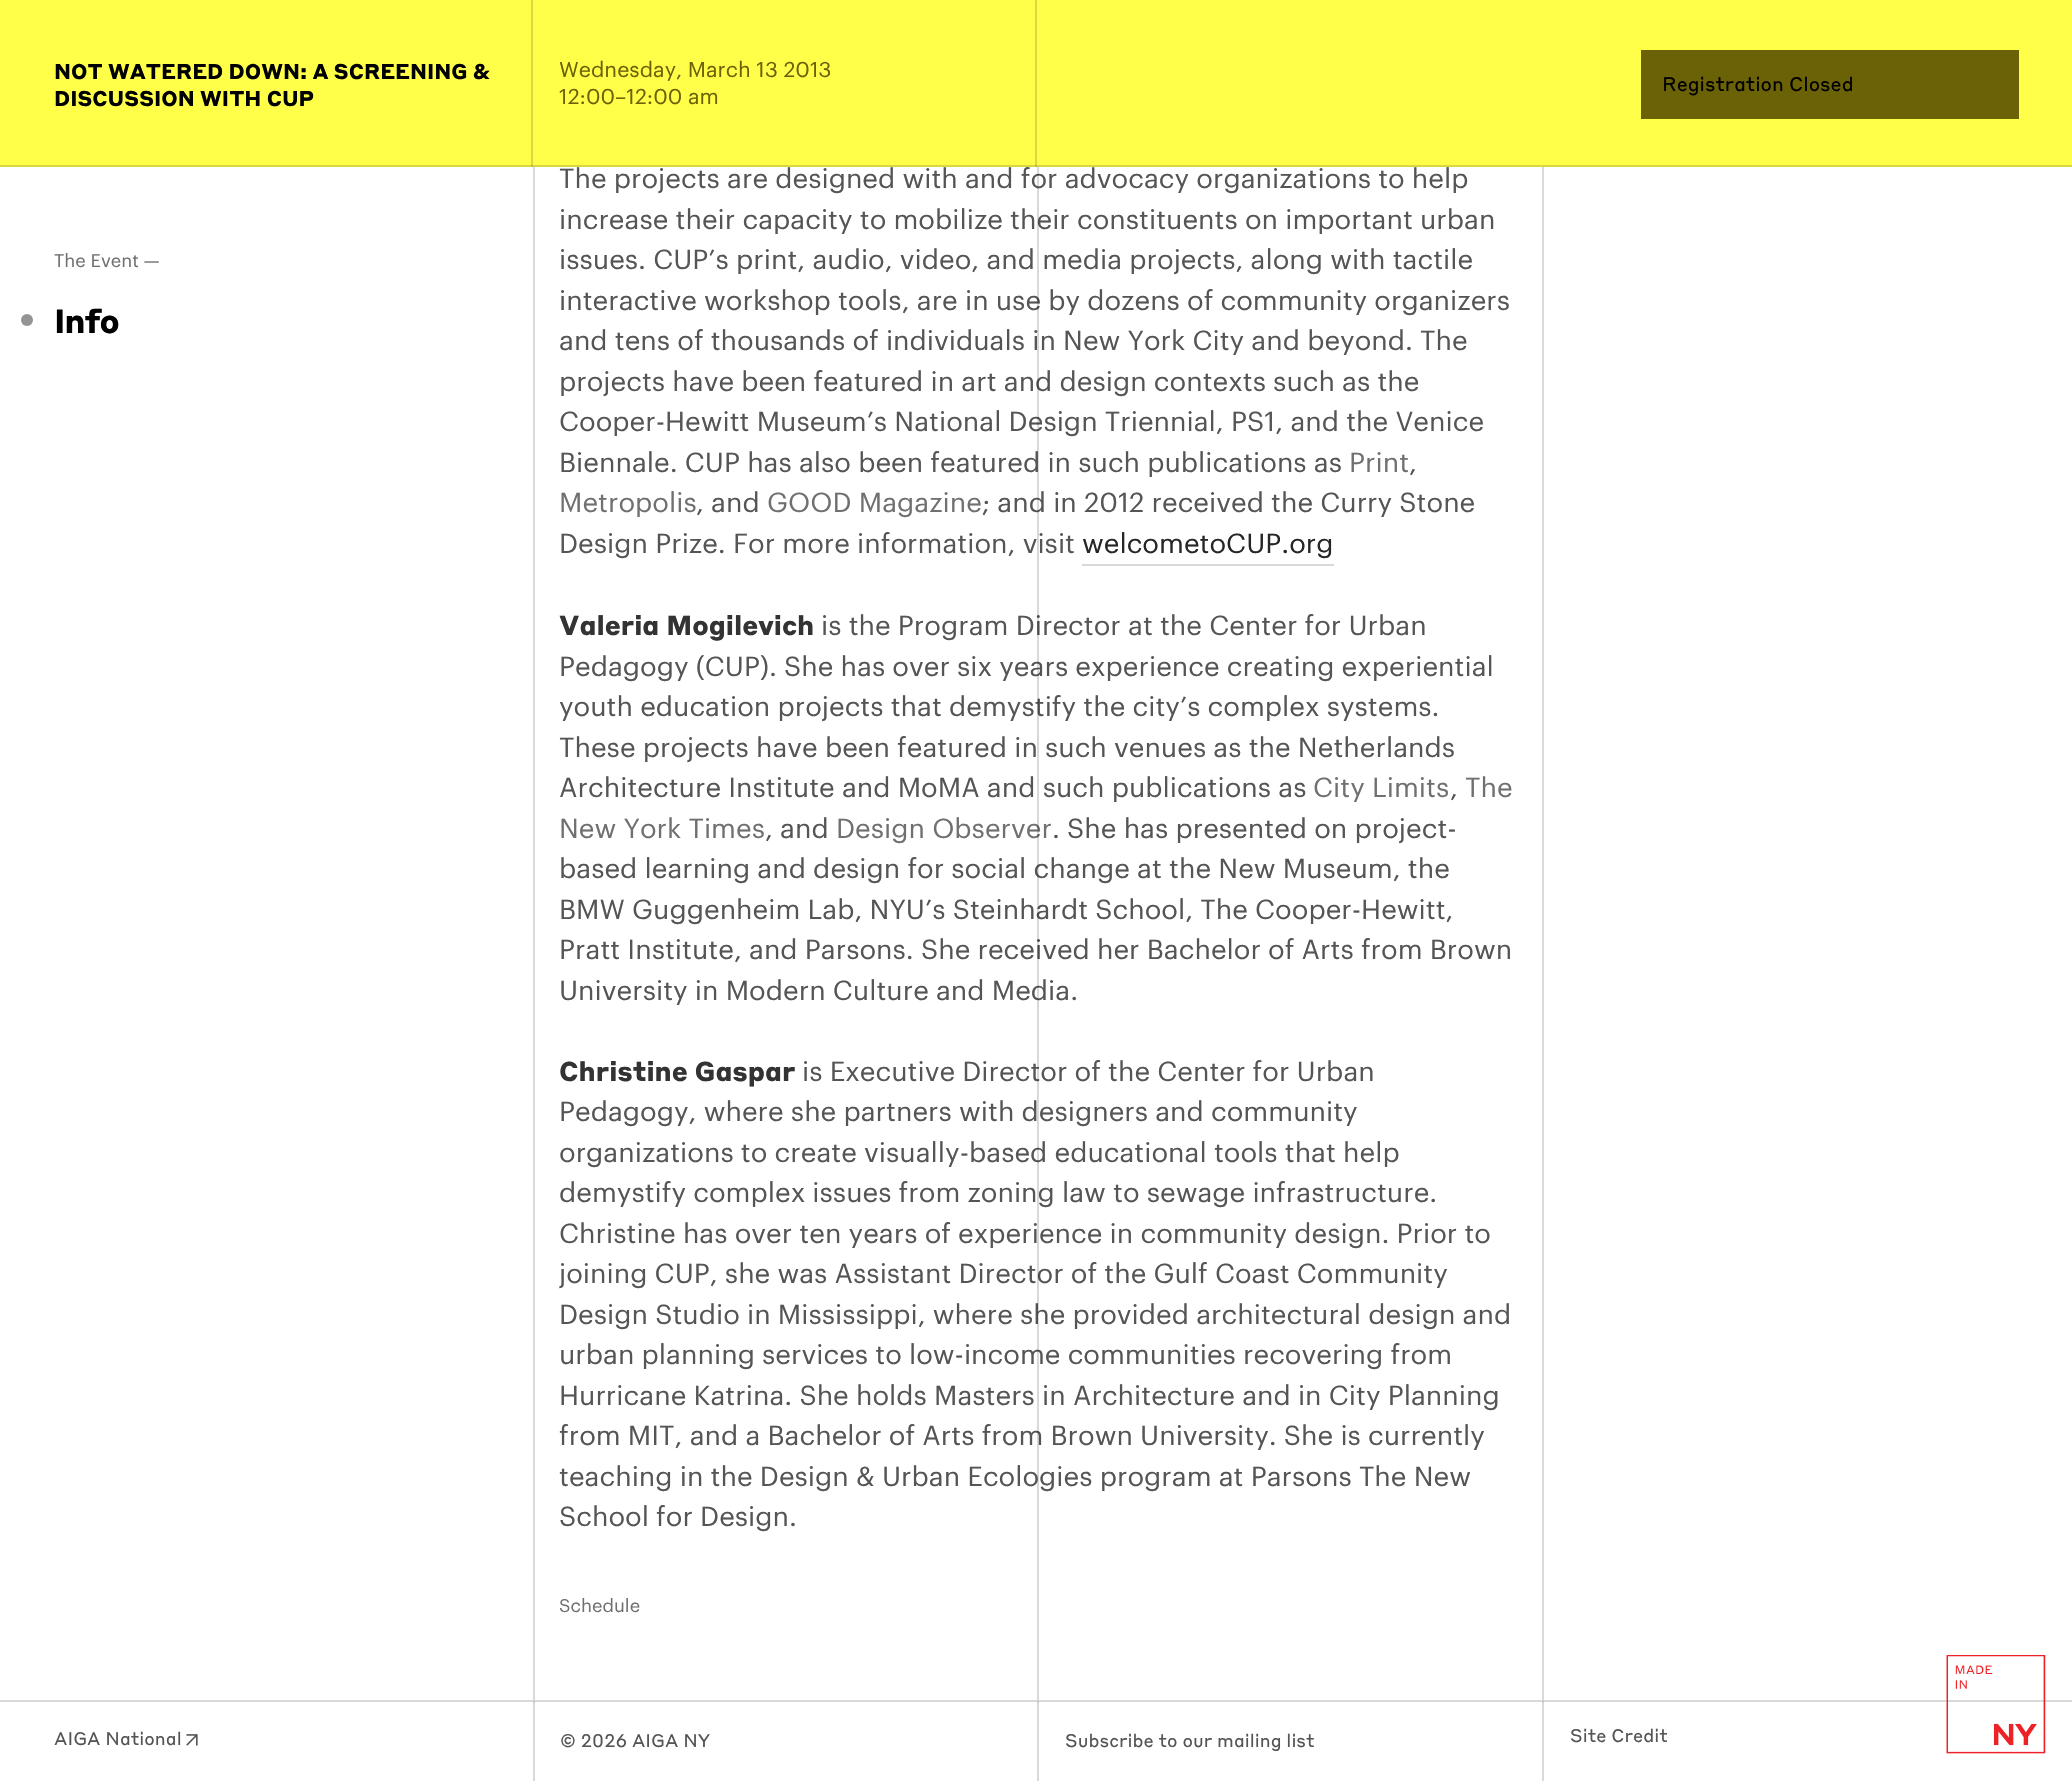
void draw(SkCanvas* canvas) {
    SkPaint paint;
    paint.setAntiAlias(true);
    auto spacedText = [&](const char* s, float x, float y, const SkFont& font, const SkPaint& ink, float letter, float word) {
        std::vector<SkGlyphID> glyphs(font.countText(s, strlen(s), SkTextEncoding::kUTF8));
        std::vector<float> xs(glyphs.size());
        font.textToGlyphs(s, strlen(s), SkTextEncoding::kUTF8, glyphs);
        font.getXPos(glyphs, xs, x);
        float extra = 0;
        for (size_t i = 0; i < glyphs.size(); i++) {
            xs[i] += extra;
            extra += letter + word * (glyphs[i] == font.unicharToGlyph(' '));
        }
        canvas->drawTextBlob(SkTextBlob::MakeFromPosHGlyphs(glyphs, xs, y, font), 0, 0, ink);
    };
    canvas->clear(0xFFFFFFFF);
    paint.setColor(0xFFD9D9D9);
    canvas->drawRect(SkRect::MakeXYWH(533, 165, 2, 1535), paint);
    SkFont font1(fontMgr->matchFamilyStyle("Graphik", SkFontStyle::Normal()), 27);
    font1.setSubpixel(true);
    paint.setColor(0xFF555555);
    canvas->drawString("The projects are designed with and for advocacy organizations to help", 559, 188, font1, paint);
    canvas->drawString("increase their capacity to mobilize their constituents on important urban", 559, 229, font1, paint);
    canvas->drawString("issues. CUP’s print, audio, video, and media projects, along with tactile", 559, 269, font1, paint);
    canvas->drawString("interactive workshop tools, are in use by dozens of community organizers", 559, 310, font1, paint);
    canvas->drawString("and tens of thousands of individuals in New York City and beyond. The", 559, 350, font1, paint);
    canvas->drawString("projects have been featured in art and design contexts such as the", 559, 391, font1, paint);
    canvas->drawString("Cooper-Hewitt Museum’s National Design Triennial, PS1, and the Venice", 559, 431, font1, paint);
    canvas->drawString("Biennale. CUP has also been featured in such publications as", 559, 472, font1, paint);
    canvas->drawString("; and in 2012 received the Curry Stone", 982, 512, font1, paint);
    canvas->drawString("Design Prize. For more information, visit", 559, 553, font1, paint);
    canvas->drawString("is the Program Director at the Center for Urban", 821, 635, font1, paint);
    canvas->drawString("Pedagogy (CUP). She has over six years experience creating experiential", 559, 676, font1, paint);
    canvas->drawString("youth education projects that demystify the city’s complex systems.", 559, 716, font1, paint);
    canvas->drawString("These projects have been featured in such venues as the Netherlands", 559, 757, font1, paint);
    canvas->drawString("Architecture Institute and MoMA and such publications as", 559, 797, font1, paint);
    paint.setColor(0xFF707070);
    canvas->drawString("Design Observer", 836, 838, font1, paint);
    paint.setColor(0xFF555555);
    canvas->drawString("based learning and design for social change at the New Museum, the", 559, 878, font1, paint);
    canvas->drawString("BMW Guggenheim Lab, NYU’s Steinhardt School, The Cooper-Hewitt,", 559, 919, font1, paint);
    canvas->drawString("Pratt Institute, and Parsons. She received her Bachelor of Arts from Brown", 559, 959, font1, paint);
    canvas->drawString("University in Modern Culture and Media.", 559, 1000, font1, paint);
    canvas->drawString("is Executive Director of the Center for Urban", 802, 1081, font1, paint);
    canvas->drawString("Pedagogy, where she partners with designers and community", 559, 1121, font1, paint);
    canvas->drawString("organizations to create visually-based educational tools that help", 559, 1162, font1, paint);
    canvas->drawString("demystify complex issues from zoning law to sewage infrastructure.", 559, 1202, font1, paint);
    canvas->drawString("Christine has over ten years of experience in community design. Prior to", 559, 1243, font1, paint);
    canvas->drawString("joining CUP, she was Assistant Director of the Gulf Coast Community", 559, 1283, font1, paint);
    canvas->drawString("Design Studio in Mississippi, where she provided architectural design and", 559, 1324, font1, paint);
    canvas->drawString("urban planning services to low-income communities recovering from", 559, 1364, font1, paint);
    canvas->drawString("Hurricane Katrina. She holds Masters in Architecture and in City Planning", 559, 1405, font1, paint);
    canvas->drawString("from MIT, and a Bachelor of Arts from Brown University. She is currently", 559, 1445, font1, paint);
    canvas->drawString("teaching in the Design & Urban Ecologies program at Parsons The New", 559, 1486, font1, paint);
    paint.setColor(0x26000000);
    canvas->drawRect(SkRect::MakeXYWH(1037, 165, 2, 1535), paint);
    paint.setColor(0xFFD9D9D9);
    canvas->drawRect(SkRect::MakeXYWH(1542, 165, 2, 1535), paint);
    paint.setColor(0xFFFFFF4A);
    canvas->drawRect(SkRect::MakeXYWH(0, 0, 2072, 167), paint);
    paint.setColor(0xFFD9D93F);
    canvas->drawRect(SkRect::MakeXYWH(531, 0, 2, 167), paint);
    SkFont font2(fontMgr->matchFamilyStyle("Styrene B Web", SkFontStyle::Bold()), 21);
    font2.setSubpixel(true);
    paint.setColor(0xFF000000);
    canvas->drawString("NOT WATERED DOWN: A SCREENING &", 54, 79, font2, paint);
    canvas->drawString("DISCUSSION WITH CUP", 54, 106, font2, paint);
    paint.setColor(0xFFD9D93F);
    canvas->drawRect(SkRect::MakeXYWH(1035, 0, 2, 167), paint);
    SkFont font3(fontMgr->matchFamilyStyle("Graphik", SkFontStyle::Normal()), 21);
    font3.setSubpixel(true);
    paint.setColor(0xFF6B6107);
    canvas->drawString("Wednesday, March 13 2013", 559, 77, font3, paint);
    canvas->drawString("12:00–12:00 am", 559, 104, font3, paint);
    canvas->drawRect(SkRect::MakeXYWH(1641, 50, 378, 69), paint);
    SkFont font4(fontMgr->matchFamilyStyle("Styrene B Web", SkFontStyle::Normal()), 19.5f);
    font4.setSubpixel(true);
    paint.setColor(0xFF000000);
    canvas->drawString("Registration Closed", 1662, 91, font4, paint);
    paint.setColor(0x26000000);
    canvas->drawRect(SkRect::MakeXYWH(0, 165, 2072, 2), paint);
    SkFont font5(fontMgr->matchFamilyStyle("Graphik", SkFontStyle::Normal()), 18);
    font5.setSubpixel(true);
    paint.setColor(0xFF707070);
    canvas->drawString("The Event —", 54, 267, font5, paint);
    paint.setColor(0xFF949494);
    canvas->drawCircle(27, 320, 6, paint);
    SkFont font6(fontMgr->matchFamilyStyle("Styrene B Web", SkFontStyle::Bold()), 33);
    font6.setSubpixel(true);
    paint.setColor(0xFF000000);
    spacedText("Info", 54, 333, font6, paint, -1, 0);
    paint.setColor(0xFF707070);
    canvas->drawString("Print", 1349, 472, font1, paint);
    paint.setColor(0xFF555555);
    canvas->drawString(",", 1409, 472, font1, paint);
    paint.setColor(0xFF707070);
    canvas->drawString("Metropolis", 559, 512, font1, paint);
    paint.setColor(0xFF555555);
    canvas->drawString(", and", 696, 512, font1, paint);
    paint.setColor(0xFF707070);
    canvas->drawString("GOOD Magazine", 767, 512, font1, paint);
    paint.setColor(0xFFD9D9D9);
    canvas->drawRect(SkRect::MakeXYWH(1082, 564, 252, 2), paint);
    paint.setColor(0xFF262626);
    canvas->drawString("welcometoCUP.org", 1082, 553, font1, paint);
    SkFont font7(fontMgr->matchFamilyStyle("Styrene B Web", SkFontStyle::Bold()), 27);
    font7.setSubpixel(true);
    paint.setColor(0xFF333333);
    canvas->drawString("Valeria Mogilevich", 559, 635, font7, paint);
    paint.setColor(0xFF707070);
    canvas->drawString("City Limits", 1313, 797, font1, paint);
    paint.setColor(0xFF555555);
    canvas->drawString(",", 1450, 797, font1, paint);
    paint.setColor(0xFF707070);
    canvas->drawString("The", 1465, 797, font1, paint);
    canvas->drawString("New York Times", 559, 838, font1, paint);
    paint.setColor(0xFF555555);
    canvas->drawString(", and", 765, 838, font1, paint);
    canvas->drawString(". She has presented on project-", 1052, 838, font1, paint);
    paint.setColor(0xFF333333);
    canvas->drawString("Christine Gaspar", 559, 1081, font7, paint);
    paint.setColor(0xFF555555);
    canvas->drawString("School for Design.", 559, 1526, font1, paint);
    paint.setColor(0xFF707070);
    canvas->drawString("Schedule", 559, 1612, font5, paint);
    paint.setColor(0xFFD9D9D9);
    canvas->drawRect(SkRect::MakeXYWH(1542, 1701, 2, 80), paint);
    canvas->drawRect(SkRect::MakeXYWH(533, 1701, 2, 80), paint);
    canvas->drawRect(SkRect::MakeXYWH(0, 1700, 2072, 2), paint);
    paint.setColor(0xFFB8B8B8);
    canvas->drawRect(SkRect::MakeXYWH(1542, 1701, 2, 1), paint);
    canvas->drawRect(SkRect::MakeXYWH(533, 1701, 2, 1), paint);
    SkFont font8(fontMgr->matchFamilyStyle("Styrene B Web", SkFontStyle::Normal()), 18);
    font8.setSubpixel(true);
    paint.setColor(0xFF555555);
    canvas->drawString("AIGA National", 54, 1745, font8, paint);
    canvas->drawImageRect(SkImages::DeferredFromEncodedData(SkData::MakeFromFileName("img1.png")), SkRect::MakeXYWH(186, 1734, 12, 12), SkSamplingOptions());
    canvas->drawString("© 2026 AIGA NY", 560, 1747, font8, paint);
    paint.setColor(0x26000000);
    canvas->drawRect(SkRect::MakeXYWH(1037, 1701, 2, 80), paint);
    paint.setColor(0xFF555555);
    canvas->drawString("Subscribe to our mailing list", 1065, 1747, font8, paint);
    canvas->drawString("Site Credit", 1570, 1742, font8, paint);
    canvas->drawImageRect(SkImages::DeferredFromEncodedData(SkData::MakeFromFileName("img2.png")), SkRect::MakeXYWH(1946, 1655, 100, 99), SkSamplingOptions());
}
